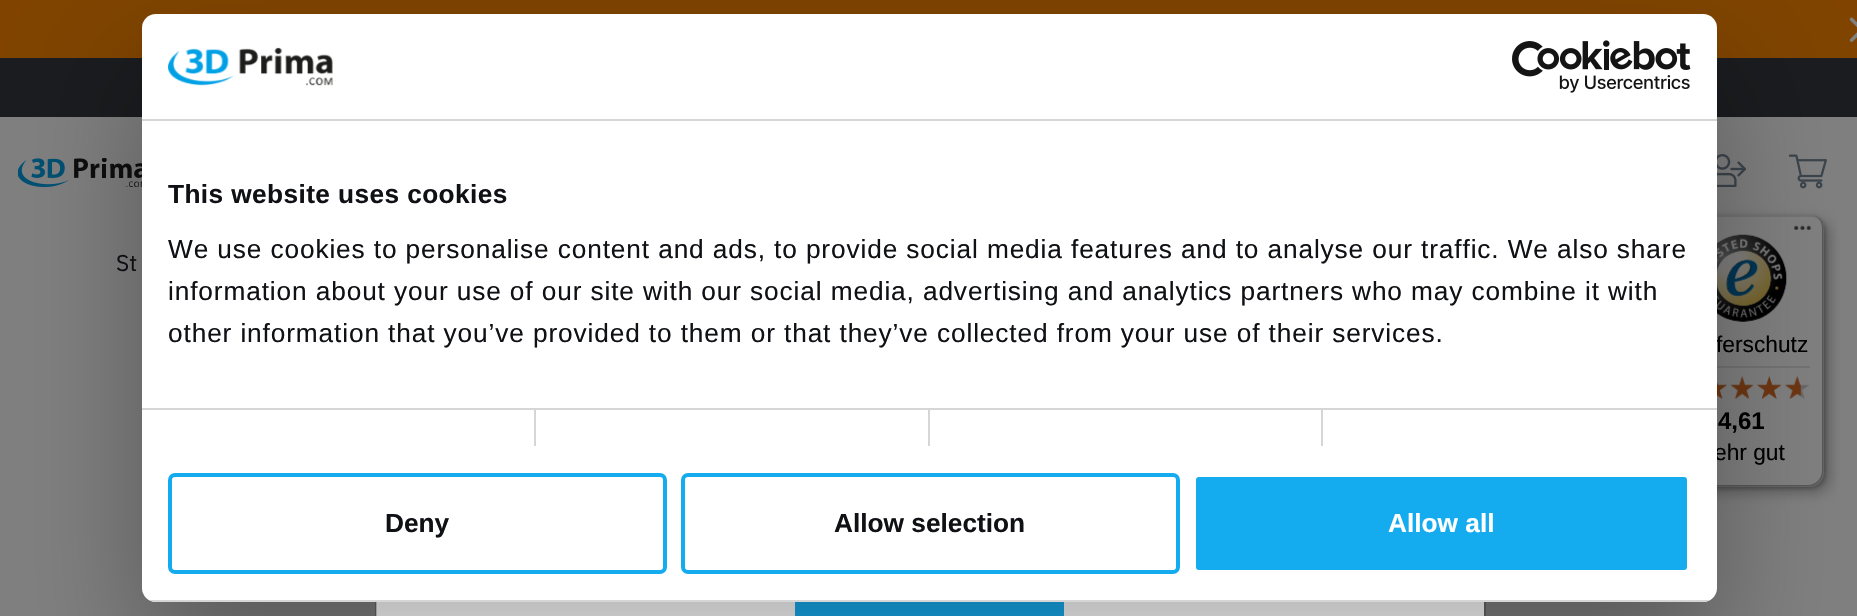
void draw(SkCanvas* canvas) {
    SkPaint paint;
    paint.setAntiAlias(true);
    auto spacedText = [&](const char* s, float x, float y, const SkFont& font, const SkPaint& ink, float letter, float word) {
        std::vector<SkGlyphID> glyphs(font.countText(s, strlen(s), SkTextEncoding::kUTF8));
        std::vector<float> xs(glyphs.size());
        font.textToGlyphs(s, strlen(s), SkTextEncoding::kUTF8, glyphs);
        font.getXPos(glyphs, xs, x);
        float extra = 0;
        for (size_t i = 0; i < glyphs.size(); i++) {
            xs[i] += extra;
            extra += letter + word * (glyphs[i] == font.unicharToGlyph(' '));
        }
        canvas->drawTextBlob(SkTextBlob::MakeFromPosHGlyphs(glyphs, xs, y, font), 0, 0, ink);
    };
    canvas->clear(0xFF808080);
    paint.setColor(0xFF804400);
    canvas->drawRect(SkRect::MakeXYWH(0, 0, 1857, 58), paint);
    canvas->drawImageRect(SkImages::DeferredFromEncodedData(SkData::MakeFromFileName("img1.png")), SkRect::MakeXYWH(1849, 17, 8, 25), SkSamplingOptions());
    paint.setColor(0xFF1B1C1F);
    canvas->drawRect(SkRect::MakeXYWH(0, 58, 1857, 59), paint);
    canvas->drawImageRect(SkImages::DeferredFromEncodedData(SkData::MakeFromFileName("img2.png")), SkRect::MakeXYWH(18, 158, 124, 29), SkSamplingOptions());
    canvas->drawImageRect(SkImages::DeferredFromEncodedData(SkData::MakeFromFileName("img3.png")), SkRect::MakeXYWH(1717, 154, 29, 33), SkSamplingOptions());
    canvas->drawImageRect(SkImages::DeferredFromEncodedData(SkData::MakeFromFileName("img4.png")), SkRect::MakeXYWH(1789, 154, 38, 35), SkSamplingOptions());
    SkFont font1(fontMgr->matchFamilyStyle("IBM Plex Sans", SkFontStyle::Normal()), 22.75f);
    font1.setSubpixel(true);
    paint.setColor(0xFF101115);
    canvas->drawString("St", 116, 271, font1, paint);
    paint.setColor(0xFFFFFFFF);
    canvas->drawRect(SkRect::MakeXYWH(376, 602, 1108, 14), paint);
    paint.setStyle(SkPaint::kStroke_Style);
    paint.setStrokeWidth(2);
    paint.setColor(0x33000000);
    canvas->drawRect(SkRect::MakeXYWH(376, 47, 1109, 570), paint);
    paint.setStyle(SkPaint::kFill_Style);
    paint.setColor(0xFF17ACEF);
    canvas->drawRect(SkRect::MakeXYWH(795, 602, 269, 14), paint);
    paint.setColor(0x26000000);
    paint.setMaskFilter(SkMaskFilter::MakeBlur(kNormal_SkBlurStyle, 7));
    canvas->drawRoundRect(SkRect::MakeXYWH(1666, 221, 163, 271), 14, 14, paint);
    paint.setMaskFilter(nullptr);
    paint.setMaskFilter(SkMaskFilter::MakeBlur(kNormal_SkBlurStyle, 2));
    canvas->drawRoundRect(SkRect::MakeXYWH(1663, 217, 162, 271), 14, 14, paint);
    paint.setMaskFilter(nullptr);
    paint.setColor(0x1A000000);
    canvas->drawPath(SkPathBuilder().moveTo(1676, 217).lineTo(1811, 217).cubicTo(1816, 217, 1820, 219, 1823, 223).cubicTo(1820, 218, 1816, 215, 1810, 215).lineTo(1675, 215).cubicTo(1667, 215, 1661, 221, 1661, 229).lineTo(1661, 473).cubicTo(1661, 478, 1663, 482, 1667, 484).cubicTo(1664, 482, 1662, 478, 1662, 474).lineTo(1662, 231).cubicTo(1662, 223, 1669, 217, 1676, 217).close().detach(), paint);
    paint.setColor(0x33000000);
    canvas->drawPath(SkPathBuilder().moveTo(1664, 481).cubicTo(1666, 485, 1670, 487, 1675, 487).lineTo(1810, 487).cubicTo(1818, 487, 1824, 481, 1824, 473).lineTo(1824, 229).cubicTo(1824, 223, 1820, 218, 1815, 216).cubicTo(1819, 218, 1822, 223, 1822, 228).lineTo(1822, 471).cubicTo(1822, 478, 1815, 485, 1808, 485).lineTo(1673, 485).cubicTo(1669, 485, 1666, 484, 1664, 481).close().detach(), paint);
    paint.setColor(0x33191919);
    canvas->drawPath(SkPathBuilder().moveTo(1662, 479).cubicTo(1665, 484, 1669, 487, 1675, 487).lineTo(1810, 487).cubicTo(1818, 487, 1824, 481, 1824, 473).lineTo(1824, 229).cubicTo(1824, 223, 1821, 219, 1816, 216).cubicTo(1820, 219, 1822, 223, 1822, 228).lineTo(1822, 471).cubicTo(1822, 479, 1816, 485, 1808, 485).lineTo(1674, 485).cubicTo(1669, 485, 1665, 483, 1662, 479).close().detach(), paint);
    paint.setColor(0x4D808080);
    canvas->drawPath(SkPathBuilder().moveTo(1664, 481).cubicTo(1666, 485, 1670, 487, 1675, 487).lineTo(1810, 487).cubicTo(1818, 487, 1824, 481, 1824, 473).lineTo(1824, 229).cubicTo(1824, 224, 1821, 219, 1817, 217).cubicTo(1820, 219, 1823, 224, 1823, 228).lineTo(1823, 472).cubicTo(1823, 479, 1816, 486, 1809, 486).lineTo(1674, 486).cubicTo(1670, 486, 1666, 484, 1664, 481).close().detach(), paint);
    paint.setColor(0x26000000);
    paint.setMaskFilter(SkMaskFilter::MakeBlur(kNormal_SkBlurStyle, 7));
    canvas->drawRoundRect(SkRect::MakeXYWH(1666, 221, 163, 271), 14, 14, paint);
    paint.setMaskFilter(nullptr);
    paint.setMaskFilter(SkMaskFilter::MakeBlur(kNormal_SkBlurStyle, 2));
    canvas->drawRoundRect(SkRect::MakeXYWH(1663, 217, 162, 271), 14, 14, paint);
    paint.setMaskFilter(nullptr);
    paint.setColor(0xFF808080);
    canvas->drawRoundRect(SkRect::MakeXYWH(1661, 215, 163, 272), 14, 14, paint);
    paint.setColor(0x1A000000);
    canvas->drawPath(SkPathBuilder().moveTo(1676, 217).lineTo(1811, 217).cubicTo(1816, 217, 1820, 219, 1823, 223).cubicTo(1820, 218, 1816, 215, 1810, 215).lineTo(1675, 215).cubicTo(1667, 215, 1661, 221, 1661, 229).lineTo(1661, 473).cubicTo(1661, 478, 1663, 482, 1667, 484).cubicTo(1664, 482, 1662, 478, 1662, 474).lineTo(1662, 231).cubicTo(1662, 223, 1669, 217, 1676, 217).close().detach(), paint);
    paint.setColor(0x33000000);
    canvas->drawPath(SkPathBuilder().moveTo(1664, 481).cubicTo(1666, 485, 1670, 487, 1675, 487).lineTo(1810, 487).cubicTo(1818, 487, 1824, 481, 1824, 473).lineTo(1824, 229).cubicTo(1824, 223, 1820, 218, 1815, 216).cubicTo(1819, 218, 1822, 223, 1822, 228).lineTo(1822, 471).cubicTo(1822, 478, 1815, 485, 1808, 485).lineTo(1673, 485).cubicTo(1669, 485, 1666, 484, 1664, 481).close().detach(), paint);
    paint.setColor(0x33191919);
    canvas->drawPath(SkPathBuilder().moveTo(1662, 479).cubicTo(1665, 484, 1669, 487, 1675, 487).lineTo(1810, 487).cubicTo(1818, 487, 1824, 481, 1824, 473).lineTo(1824, 229).cubicTo(1824, 223, 1821, 219, 1816, 216).cubicTo(1820, 219, 1822, 223, 1822, 228).lineTo(1822, 471).cubicTo(1822, 479, 1816, 485, 1808, 485).lineTo(1674, 485).cubicTo(1669, 485, 1665, 483, 1662, 479).close().detach(), paint);
    paint.setColor(0x4D808080);
    canvas->drawPath(SkPathBuilder().moveTo(1664, 481).cubicTo(1666, 485, 1670, 487, 1675, 487).lineTo(1810, 487).cubicTo(1818, 487, 1824, 481, 1824, 473).lineTo(1824, 229).cubicTo(1824, 224, 1821, 219, 1817, 217).cubicTo(1820, 219, 1823, 224, 1823, 228).lineTo(1823, 472).cubicTo(1823, 479, 1816, 486, 1809, 486).lineTo(1674, 486).cubicTo(1670, 486, 1666, 484, 1664, 481).close().detach(), paint);
    canvas->drawImageRect(SkImages::DeferredFromEncodedData(SkData::MakeFromFileName("img7.png")), SkRect::MakeXYWH(1794, 225, 18, 5), SkSamplingOptions());
    canvas->drawImageRect(SkImages::DeferredFromEncodedData(SkData::MakeFromFileName("img8.png")), SkRect::MakeXYWH(1717, 234, 70, 88), SkSamplingOptions());
    paint.setColor(0xFF737373);
    canvas->drawRect(SkRect::MakeXYWH(1717, 366, 93, 2), paint);
    canvas->drawImageRect(SkImages::DeferredFromEncodedData(SkData::MakeFromFileName("img9.png")), SkRect::MakeXYWH(1717, 382, 10, 17), SkSamplingOptions());
    canvas->drawImageRect(SkImages::DeferredFromEncodedData(SkData::MakeFromFileName("img10.png")), SkRect::MakeXYWH(1731, 376, 22, 23), SkSamplingOptions());
    canvas->drawImageRect(SkImages::DeferredFromEncodedData(SkData::MakeFromFileName("img11.png")), SkRect::MakeXYWH(1757, 376, 24, 23), SkSamplingOptions());
    canvas->drawImageRect(SkImages::DeferredFromEncodedData(SkData::MakeFromFileName("img12.png")), SkRect::MakeXYWH(1785, 376, 24, 23), SkSamplingOptions());
    canvas->drawImageRect(SkImages::DeferredFromEncodedData(SkData::MakeFromFileName("img13.png")), SkRect::MakeXYWH(1717, 382, 10, 17), SkSamplingOptions());
    canvas->drawImageRect(SkImages::DeferredFromEncodedData(SkData::MakeFromFileName("img14.png")), SkRect::MakeXYWH(1730, 376, 24, 23), SkSamplingOptions());
    canvas->drawImageRect(SkImages::DeferredFromEncodedData(SkData::MakeFromFileName("img15.png")), SkRect::MakeXYWH(1757, 376, 24, 23), SkSamplingOptions());
    canvas->drawImageRect(SkImages::DeferredFromEncodedData(SkData::MakeFromFileName("img16.png")), SkRect::MakeXYWH(1785, 376, 16, 23), SkSamplingOptions());
    paint.setColor(0x4D000000);
    paint.setMaskFilter(SkMaskFilter::MakeBlur(kNormal_SkBlurStyle, 59.5f));
    canvas->drawRoundRect(SkRect::MakeXYWH(142, 70, 1575, 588), 14, 14, paint);
    paint.setMaskFilter(nullptr);
    SkFont font2(fontMgr->matchFamilyStyle("Liberation Sans", SkFontStyle::Normal()), 22.75f);
    font2.setSubpixel(true);
    paint.setColor(0xFF000000);
    canvas->drawString("ferschutz", 1716, 352, font2, paint);
    canvas->drawString("ehr gut", 1714, 460, font2, paint);
    paint.setColor(0xFFFFFFFF);
    canvas->drawRoundRect(SkRect::MakeXYWH(142, 14, 1575, 588), 14, 14, paint);
    paint.setColor(0xFFD6D6D6);
    canvas->drawRect(SkRect::MakeXYWH(142, 119, 1575, 2), paint);
    canvas->drawImageRect(SkImages::DeferredFromEncodedData(SkData::MakeFromFileName("img5.png")), SkRect::MakeXYWH(168, 47, 165, 39), SkSamplingOptions());
    canvas->drawImageRect(SkImages::DeferredFromEncodedData(SkData::MakeFromFileName("img6.png")), SkRect::MakeXYWH(1512, 40, 179, 53), SkSamplingOptions());
    canvas->drawRect(SkRect::MakeXYWH(142, 408, 1575, 2), paint);
    SkFont font3(fontMgr->matchFamilyStyle("Liberation Sans", SkFontStyle::Bold()), 26.25f);
    font3.setSubpixel(true);
    paint.setColor(0xFF101115);
    spacedText("This website uses cookies", 168, 203, font3, paint, 0.4f, 0);
    SkFont font4(fontMgr->matchFamilyStyle("Liberation Sans", SkFontStyle::Normal()), 26.25f);
    font4.setSubpixel(true);
    spacedText("We use cookies to personalise content and ads, to provide social media features and to analyse our traffic. We also share", 168, 258, font4, paint, 0.88f, 0);
    spacedText("information about your use of our site with our social media, advertising and analytics partners who may combine it with", 168, 300, font4, paint, 0.88f, 0);
    spacedText("other information that you’ve provided to them or that they’ve collected from your use of their services.", 168, 342, font4, paint, 0.88f, 0);
    paint.setColor(0xFFD6D6D6);
    canvas->drawRect(SkRect::MakeXYWH(534, 410, 2, 36), paint);
    canvas->drawRect(SkRect::MakeXYWH(928, 410, 2, 36), paint);
    canvas->drawRect(SkRect::MakeXYWH(1321, 410, 2, 36), paint);
    canvas->save();
    canvas->clipPath(SkPathBuilder().moveTo(156, 14).lineTo(1703, 14).cubicTo(1710.5f, 14, 1717, 20.5f, 1717, 28).lineTo(1717, 588).cubicTo(1717, 595.5f, 1710.5f, 602, 1703, 602).lineTo(156, 602).cubicTo(148.5f, 602, 142, 595.5f, 142, 588).lineTo(142, 28).cubicTo(142, 20.5f, 148.5f, 14, 156, 14).close().detach(), true);
    canvas->drawRect(SkRect::MakeXYWH(142, 600, 1575, 2), paint);
    canvas->restore();
    paint.setStyle(SkPaint::kStroke_Style);
    paint.setStrokeWidth(4);
    paint.setColor(0xFF15ACEF);
    canvas->drawRoundRect(SkRect::MakeXYWH(170, 475, 495, 97), 5, 5, paint);
    paint.setStyle(SkPaint::kFill_Style);
    paint.setColor(0xFF101115);
    canvas->drawString("Deny", 385, 532, font3, paint);
    paint.setStyle(SkPaint::kStroke_Style);
    paint.setColor(0xFF15ACEF);
    canvas->drawRoundRect(SkRect::MakeXYWH(683, 475, 495, 97), 5, 5, paint);
    paint.setStyle(SkPaint::kFill_Style);
    paint.setColor(0xFF101115);
    canvas->drawString("Allow selection", 834, 532, font3, paint);
    paint.setColor(0xFF15ACEF);
    canvas->drawRoundRect(SkRect::MakeXYWH(1194, 475, 495, 97), 5, 5, paint);
    paint.setStyle(SkPaint::kStroke_Style);
    paint.setColor(0xFFFFFFFF);
    canvas->drawRoundRect(SkRect::MakeXYWH(1194, 475, 495, 97), 5, 5, paint);
    paint.setStyle(SkPaint::kFill_Style);
    canvas->drawString("Allow all", 1388, 532, font3, paint);
    SkFont font5(fontMgr->matchFamilyStyle("Liberation Sans", SkFontStyle::Bold()), 24);
    font5.setSubpixel(true);
    paint.setColor(0xFF000000);
    canvas->drawString("4,61", 1718, 429, font5, paint);
}
